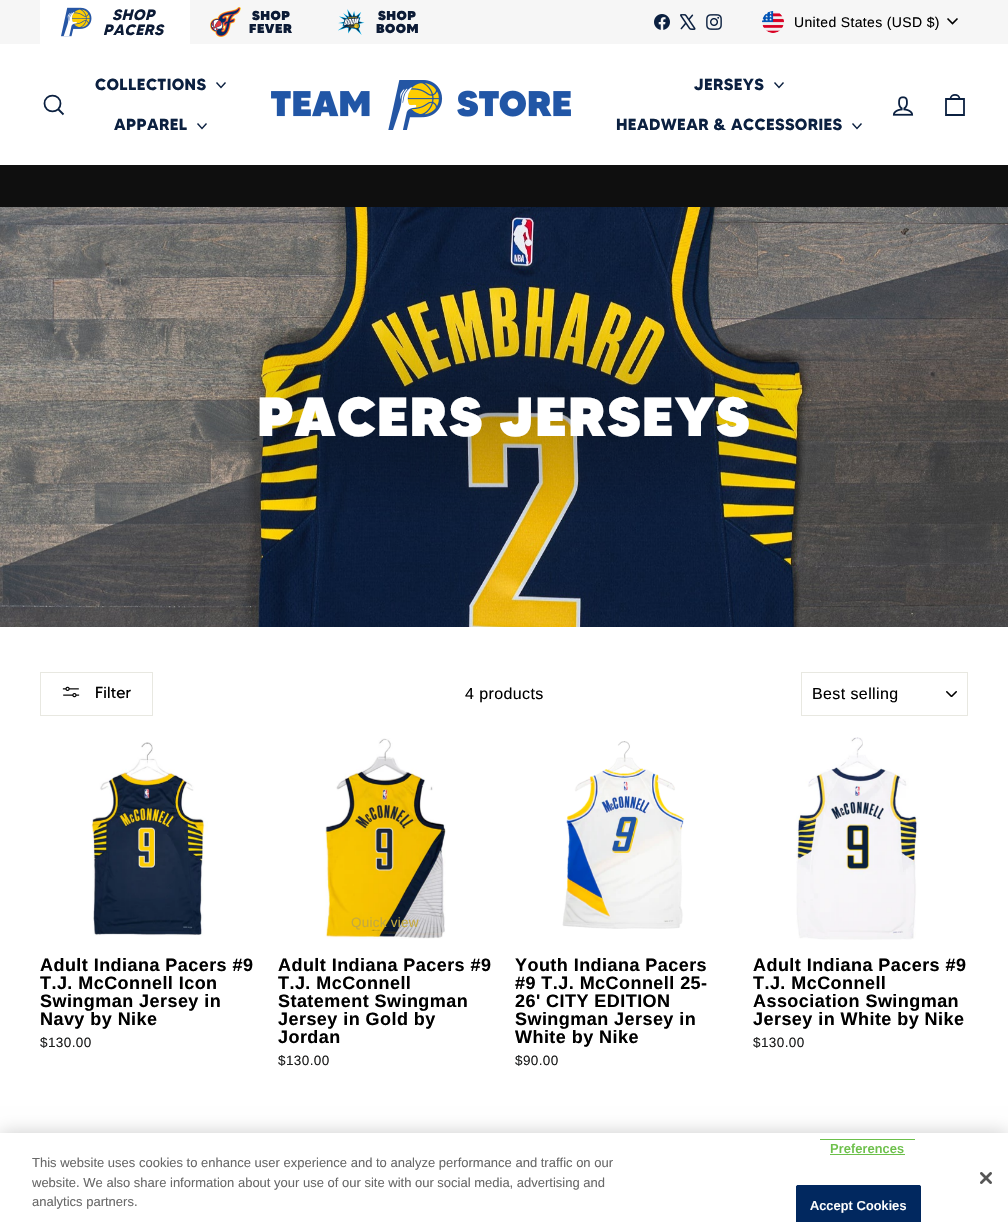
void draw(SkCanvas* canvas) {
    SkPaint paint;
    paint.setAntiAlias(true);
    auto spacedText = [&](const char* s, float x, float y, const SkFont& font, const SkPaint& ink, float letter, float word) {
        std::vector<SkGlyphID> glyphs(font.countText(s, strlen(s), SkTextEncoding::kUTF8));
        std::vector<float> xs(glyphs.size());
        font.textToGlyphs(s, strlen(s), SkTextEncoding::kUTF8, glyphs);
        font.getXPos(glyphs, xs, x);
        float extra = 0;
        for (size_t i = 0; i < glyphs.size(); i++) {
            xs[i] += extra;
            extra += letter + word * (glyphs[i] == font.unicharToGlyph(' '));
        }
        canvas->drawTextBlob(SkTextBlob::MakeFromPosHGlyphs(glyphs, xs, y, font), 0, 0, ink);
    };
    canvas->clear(0xFFFFFFFF);
    paint.setColor(0xFFF6F6F6);
    canvas->drawRect(SkRect::MakeXYWH(0, 0, 1008, 44), paint);
    paint.setColor(0xFFFFFFFF);
    canvas->drawRect(SkRect::MakeXYWH(40, 0, 150, 44), paint);
    canvas->drawImageRect(SkImages::DeferredFromEncodedData(SkData::MakeFromFileName("img1.png")), SkRect::MakeXYWH(61, 7, 31, 30), SkSamplingOptions());
    SkFont font1(fontMgr->matchFamilyStyle("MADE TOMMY", SkFontStyle::BoldItalic()), 15);
    font1.setSubpixel(true);
    paint.setColor(0xFF0C1B36);
    spacedText("SHOP", 112, 20, font1, paint, 0.5f, 0);
    spacedText("PACERS", 103, 35, font1, paint, 0.5f, 0);
    canvas->drawImageRect(SkImages::DeferredFromEncodedData(SkData::MakeFromFileName("img2.png")), SkRect::MakeXYWH(210, 7, 31, 30), SkSamplingOptions());
    SkFont font2(fontMgr->matchFamilyStyle("MADE TOMMY", SkFontStyle(900, SkFontStyle::kNormal_Width, SkFontStyle::kUpright_Slant)), 13);
    font2.setSubpixel(true);
    spacedText("SHOP", 252, 20, font2, paint, 0.5f, 0);
    spacedText("FEVER", 249, 33, font2, paint, 0.5f, 0);
    canvas->drawImageRect(SkImages::DeferredFromEncodedData(SkData::MakeFromFileName("img3.png")), SkRect::MakeXYWH(338, 9, 27, 26), SkSamplingOptions());
    spacedText("SHOP", 378, 20, font2, paint, 0.5f, 0);
    spacedText("BOOM", 376, 33, font2, paint, 0.5f, 0);
    canvas->drawImageRect(SkImages::DeferredFromEncodedData(SkData::MakeFromFileName("img4.png")), SkRect::MakeXYWH(654, 14, 16, 16), SkSamplingOptions());
    canvas->drawImageRect(SkImages::DeferredFromEncodedData(SkData::MakeFromFileName("img5.png")), SkRect::MakeXYWH(680, 14, 16, 16), SkSamplingOptions());
    canvas->drawImageRect(SkImages::DeferredFromEncodedData(SkData::MakeFromFileName("img6.png")), SkRect::MakeXYWH(706, 14, 16, 16), SkSamplingOptions());
    canvas->drawImageRect(SkImages::DeferredFromEncodedData(SkData::MakeFromFileName("img7.png")), SkRect::MakeXYWH(762, 11, 22, 22), SkSamplingOptions());
    SkFont font3(fontMgr->matchFamilyStyle("Arimo", SkFontStyle::Normal()), 14);
    font3.setSubpixel(true);
    paint.setColor(0xFF000000);
    spacedText("United States (USD $)", 794, 27, font3, paint, 0.35f, 0);
    paint.setStyle(SkPaint::kStroke_Style);
    paint.setStrokeWidth(1.6f);
    canvas->drawPath(SkPathBuilder().moveTo(947.5f, 18.5f).lineTo(952.5f, 23.5f).lineTo(957.5f, 18.5f).detach(), paint);
    paint.setStrokeWidth(1.8f);
    paint.setColor(0xFF0B2040);
    canvas->drawPath(SkPathBuilder().moveTo(60.5f, 103.5f).cubicTo(60.5f, 114, 44.5f, 114, 44.5f, 103.5f).cubicTo(44.5f, 93, 60.5f, 93, 60.5f, 103.5f).close().moveTo(63.5f, 114.5f).lineTo(58.5f, 109.5f).detach(), paint);
    SkFont font4(fontMgr->matchFamilyStyle("MADE TOMMY", SkFontStyle::Bold()), 16);
    font4.setSubpixel(true);
    paint.setStyle(SkPaint::kFill_Style);
    spacedText("COLLECTIONS", 95, 90, font4, paint, 0.4f, 0);
    paint.setStyle(SkPaint::kStroke_Style);
    paint.setStrokeWidth(1.4f);
    canvas->drawPath(SkPathBuilder().moveTo(216.5f, 82.5f).lineTo(221, 87.5f).lineTo(225.5f, 82.5f).detach(), paint);
    paint.setStyle(SkPaint::kFill_Style);
    spacedText("APPAREL", 114, 130, font4, paint, 0.4f, 0);
    paint.setStyle(SkPaint::kStroke_Style);
    canvas->drawPath(SkPathBuilder().moveTo(197.5f, 123.5f).lineTo(202, 128.5f).lineTo(206.5f, 123.5f).detach(), paint);
    canvas->drawImageRect(SkImages::DeferredFromEncodedData(SkData::MakeFromFileName("img8.png")), SkRect::MakeXYWH(271, 80, 300, 50), SkSamplingOptions());
    paint.setStyle(SkPaint::kFill_Style);
    spacedText("JERSEYS", 694, 90, font4, paint, 0.4f, 0);
    paint.setStyle(SkPaint::kStroke_Style);
    canvas->drawPath(SkPathBuilder().moveTo(774.5f, 82.5f).lineTo(779, 87.5f).lineTo(783.5f, 82.5f).detach(), paint);
    paint.setStyle(SkPaint::kFill_Style);
    spacedText("HEADWEAR & ACCESSORIES", 616, 130, font4, paint, 0.4f, 0);
    paint.setStyle(SkPaint::kStroke_Style);
    canvas->drawPath(SkPathBuilder().moveTo(852.5f, 123.5f).lineTo(857, 128.5f).lineTo(861.5f, 123.5f).detach(), paint);
    canvas->drawImageRect(SkImages::DeferredFromEncodedData(SkData::MakeFromFileName("img9.png")), SkRect::MakeXYWH(892, 96, 22, 20), SkSamplingOptions());
    paint.setStrokeWidth(1.8f);
    canvas->drawPath(SkPathBuilder().moveTo(946, 99).lineTo(964, 99).lineTo(964, 115).lineTo(946, 115).close().moveTo(950.5f, 99).cubicTo(950.5f, 93.5f, 959.5f, 93.5f, 959.5f, 99).detach(), paint);
    paint.setStyle(SkPaint::kFill_Style);
    paint.setColor(0xFF0F0F0F);
    canvas->drawRect(SkRect::MakeXYWH(0, 165, 1008, 42), paint);
    canvas->drawImageRect(SkImages::DeferredFromEncodedData(SkData::MakeFromFileName("img10.png")), SkRect::MakeXYWH(0, 207, 1008, 420), SkSamplingOptions());
    SkFont font5(fontMgr->matchFamilyStyle("MADE TOMMY", SkFontStyle(900, SkFontStyle::kNormal_Width, SkFontStyle::kUpright_Slant)), 55);
    font5.setSubpixel(true);
    paint.setColor(0xFFFFFFFF);
    spacedText("PACERS JERSEYS", 257, 436, font5, paint, 1.4f, 0);
    paint.setStyle(SkPaint::kStroke_Style);
    paint.setStrokeWidth(1);
    paint.setColor(0xFFE8E8E1);
    canvas->drawRect(SkRect::MakeXYWH(40.5f, 672.5f, 112, 43), paint);
    canvas->drawImageRect(SkImages::DeferredFromEncodedData(SkData::MakeFromFileName("img11.png")), SkRect::MakeXYWH(62, 686, 18, 12), SkSamplingOptions());
    SkFont font6(fontMgr->matchFamilyStyle("MADE TOMMY", SkFontStyle::Normal()), 16);
    font6.setSubpixel(true);
    paint.setStyle(SkPaint::kFill_Style);
    paint.setColor(0xFF000000);
    canvas->drawString("Filter", 95, 698, font6, paint);
    SkFont font7(fontMgr->matchFamilyStyle("Arimo", SkFontStyle::Normal()), 16);
    font7.setSubpixel(true);
    spacedText("4 products", 465, 699, font7, paint, 0.4f, 0);
    canvas->drawImageRect(SkImages::DeferredFromEncodedData(SkData::MakeFromFileName("img12.png")), SkRect::MakeXYWH(946, 691, 11, 6), SkSamplingOptions());
    paint.setStyle(SkPaint::kStroke_Style);
    paint.setColor(0xFFE8E8E1);
    canvas->drawRect(SkRect::MakeXYWH(801.5f, 672.5f, 166, 43), paint);
    paint.setStyle(SkPaint::kFill_Style);
    paint.setColor(0xFF000000);
    spacedText("Best selling", 812, 699, font7, paint, 0.4f, 0);
    canvas->drawImageRect(SkImages::DeferredFromEncodedData(SkData::MakeFromFileName("img13.png")), SkRect::MakeXYWH(91, 742, 117, 194), SkSamplingOptions());
    SkFont font8(fontMgr->matchFamilyStyle("Arimo", SkFontStyle::Bold()), 18);
    font8.setSubpixel(true);
    spacedText("Adult Indiana Pacers #9", 40, 971, font8, paint, 0.45f, 0);
    spacedText("T.J. McConnell Icon", 40, 989, font8, paint, 0.45f, 0);
    spacedText("Swingman Jersey in", 40, 1007, font8, paint, 0.45f, 0);
    spacedText("Navy by Nike", 40, 1025, font8, paint, 0.45f, 0);
    SkFont font9(fontMgr->matchFamilyStyle("Arimo", SkFontStyle::Normal()), 13.5f);
    font9.setSubpixel(true);
    paint.setColor(0xFF1C1D1D);
    spacedText("$130.00", 40, 1047, font9, paint, 0.4f, 0);
    canvas->drawImageRect(SkImages::DeferredFromEncodedData(SkData::MakeFromFileName("img14.png")), SkRect::MakeXYWH(325, 738, 121, 201), SkSamplingOptions());
    paint.setColor(0xFFC4A940);
    spacedText("Quick view", 351, 927, font9, paint, 0.25f, 0);
    paint.setColor(0xFF000000);
    spacedText("Adult Indiana Pacers #9", 278, 971, font8, paint, 0.45f, 0);
    spacedText("T.J. McConnell", 278, 989, font8, paint, 0.45f, 0);
    spacedText("Statement Swingman", 278, 1007, font8, paint, 0.45f, 0);
    spacedText("Jersey in Gold by", 278, 1025, font8, paint, 0.45f, 0);
    spacedText("Jordan", 278, 1043, font8, paint, 0.45f, 0);
    paint.setColor(0xFF1C1D1D);
    spacedText("$130.00", 278, 1065, font9, paint, 0.4f, 0);
    canvas->drawImageRect(SkImages::DeferredFromEncodedData(SkData::MakeFromFileName("img15.png")), SkRect::MakeXYWH(562, 741, 123, 188), SkSamplingOptions());
    paint.setColor(0xFF000000);
    spacedText("Youth Indiana Pacers", 515, 971, font8, paint, 0.45f, 0);
    spacedText("#9 T.J. McConnell 25-", 515, 989, font8, paint, 0.45f, 0);
    spacedText("26' CITY EDITION", 515, 1007, font8, paint, 0.45f, 0);
    spacedText("Swingman Jersey in", 515, 1025, font8, paint, 0.45f, 0);
    spacedText("White by Nike", 515, 1043, font8, paint, 0.45f, 0);
    paint.setColor(0xFF1C1D1D);
    spacedText("$90.00", 515, 1065, font9, paint, 0.4f, 0);
    canvas->drawImageRect(SkImages::DeferredFromEncodedData(SkData::MakeFromFileName("img16.png")), SkRect::MakeXYWH(796, 737, 124, 203), SkSamplingOptions());
    paint.setColor(0xFF000000);
    spacedText("Adult Indiana Pacers #9", 753, 971, font8, paint, 0.45f, 0);
    spacedText("T.J. McConnell", 753, 989, font8, paint, 0.45f, 0);
    spacedText("Association Swingman", 753, 1007, font8, paint, 0.45f, 0);
    spacedText("Jersey in White by Nike", 753, 1025, font8, paint, 0.45f, 0);
    paint.setColor(0xFF1C1D1D);
    spacedText("$130.00", 753, 1047, font9, paint, 0.4f, 0);
    paint.setColor(0x33000000);
    paint.setMaskFilter(SkMaskFilter::MakeBlur(kNormal_SkBlurStyle, 9));
    canvas->drawRect(SkRect::MakeXYWH(0, 1133, 1008, 89), paint);
    paint.setMaskFilter(nullptr);
    paint.setColor(0xFFFFFFFF);
    canvas->drawRect(SkRect::MakeXYWH(0, 1133, 1008, 89), paint);
    SkFont font10(fontMgr->matchFamilyStyle("Arimo", SkFontStyle::Normal()), 13);
    font10.setSubpixel(true);
    paint.setColor(0xFF696969);
    canvas->drawString("This website uses cookies to enhance user experience and to analyze performance and traffic on our", 32, 1167, font10, paint);
    canvas->drawString("website. We also share information about your use of our site with our social media, advertising and", 32, 1187, font10, paint);
    canvas->drawString("analytics partners.", 32, 1206, font10, paint);
    SkFont font11(fontMgr->matchFamilyStyle("Arimo", SkFontStyle(600, SkFontStyle::kNormal_Width, SkFontStyle::kUpright_Slant)), 13);
    font11.setSubpixel(true);
    paint.setColor(0xFF6CC04A);
    spacedText("Preferences", 830, 1153, font11, paint, 0.1f, 0);
    canvas->drawRect(SkRect::MakeXYWH(820, 1139, 95, 1), paint);
    canvas->drawRect(SkRect::MakeXYWH(830, 1154, 75, 1), paint);
    paint.setColor(0xFF01285F);
    canvas->drawPath(SkPathBuilder().moveTo(798, 1185).lineTo(919, 1185).cubicTo(920, 1185, 921, 1186, 921, 1187).lineTo(921, 1222).lineTo(796, 1222).lineTo(796, 1187).cubicTo(796, 1186, 797, 1185, 798, 1185).close().detach(), paint);
    paint.setStyle(SkPaint::kStroke_Style);
    canvas->drawRoundRect(SkRect::MakeXYWH(796.5f, 1185.5f, 124, 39), 1.5f, 1.5f, paint);
    paint.setStyle(SkPaint::kFill_Style);
    paint.setColor(0xFFFFFFFF);
    spacedText("Accept Cookies", 810, 1210, font11, paint, 0.1f, 0);
    canvas->drawImageRect(SkImages::DeferredFromEncodedData(SkData::MakeFromFileName("img17.png")), SkRect::MakeXYWH(980, 1172, 12, 12), SkSamplingOptions());
}
